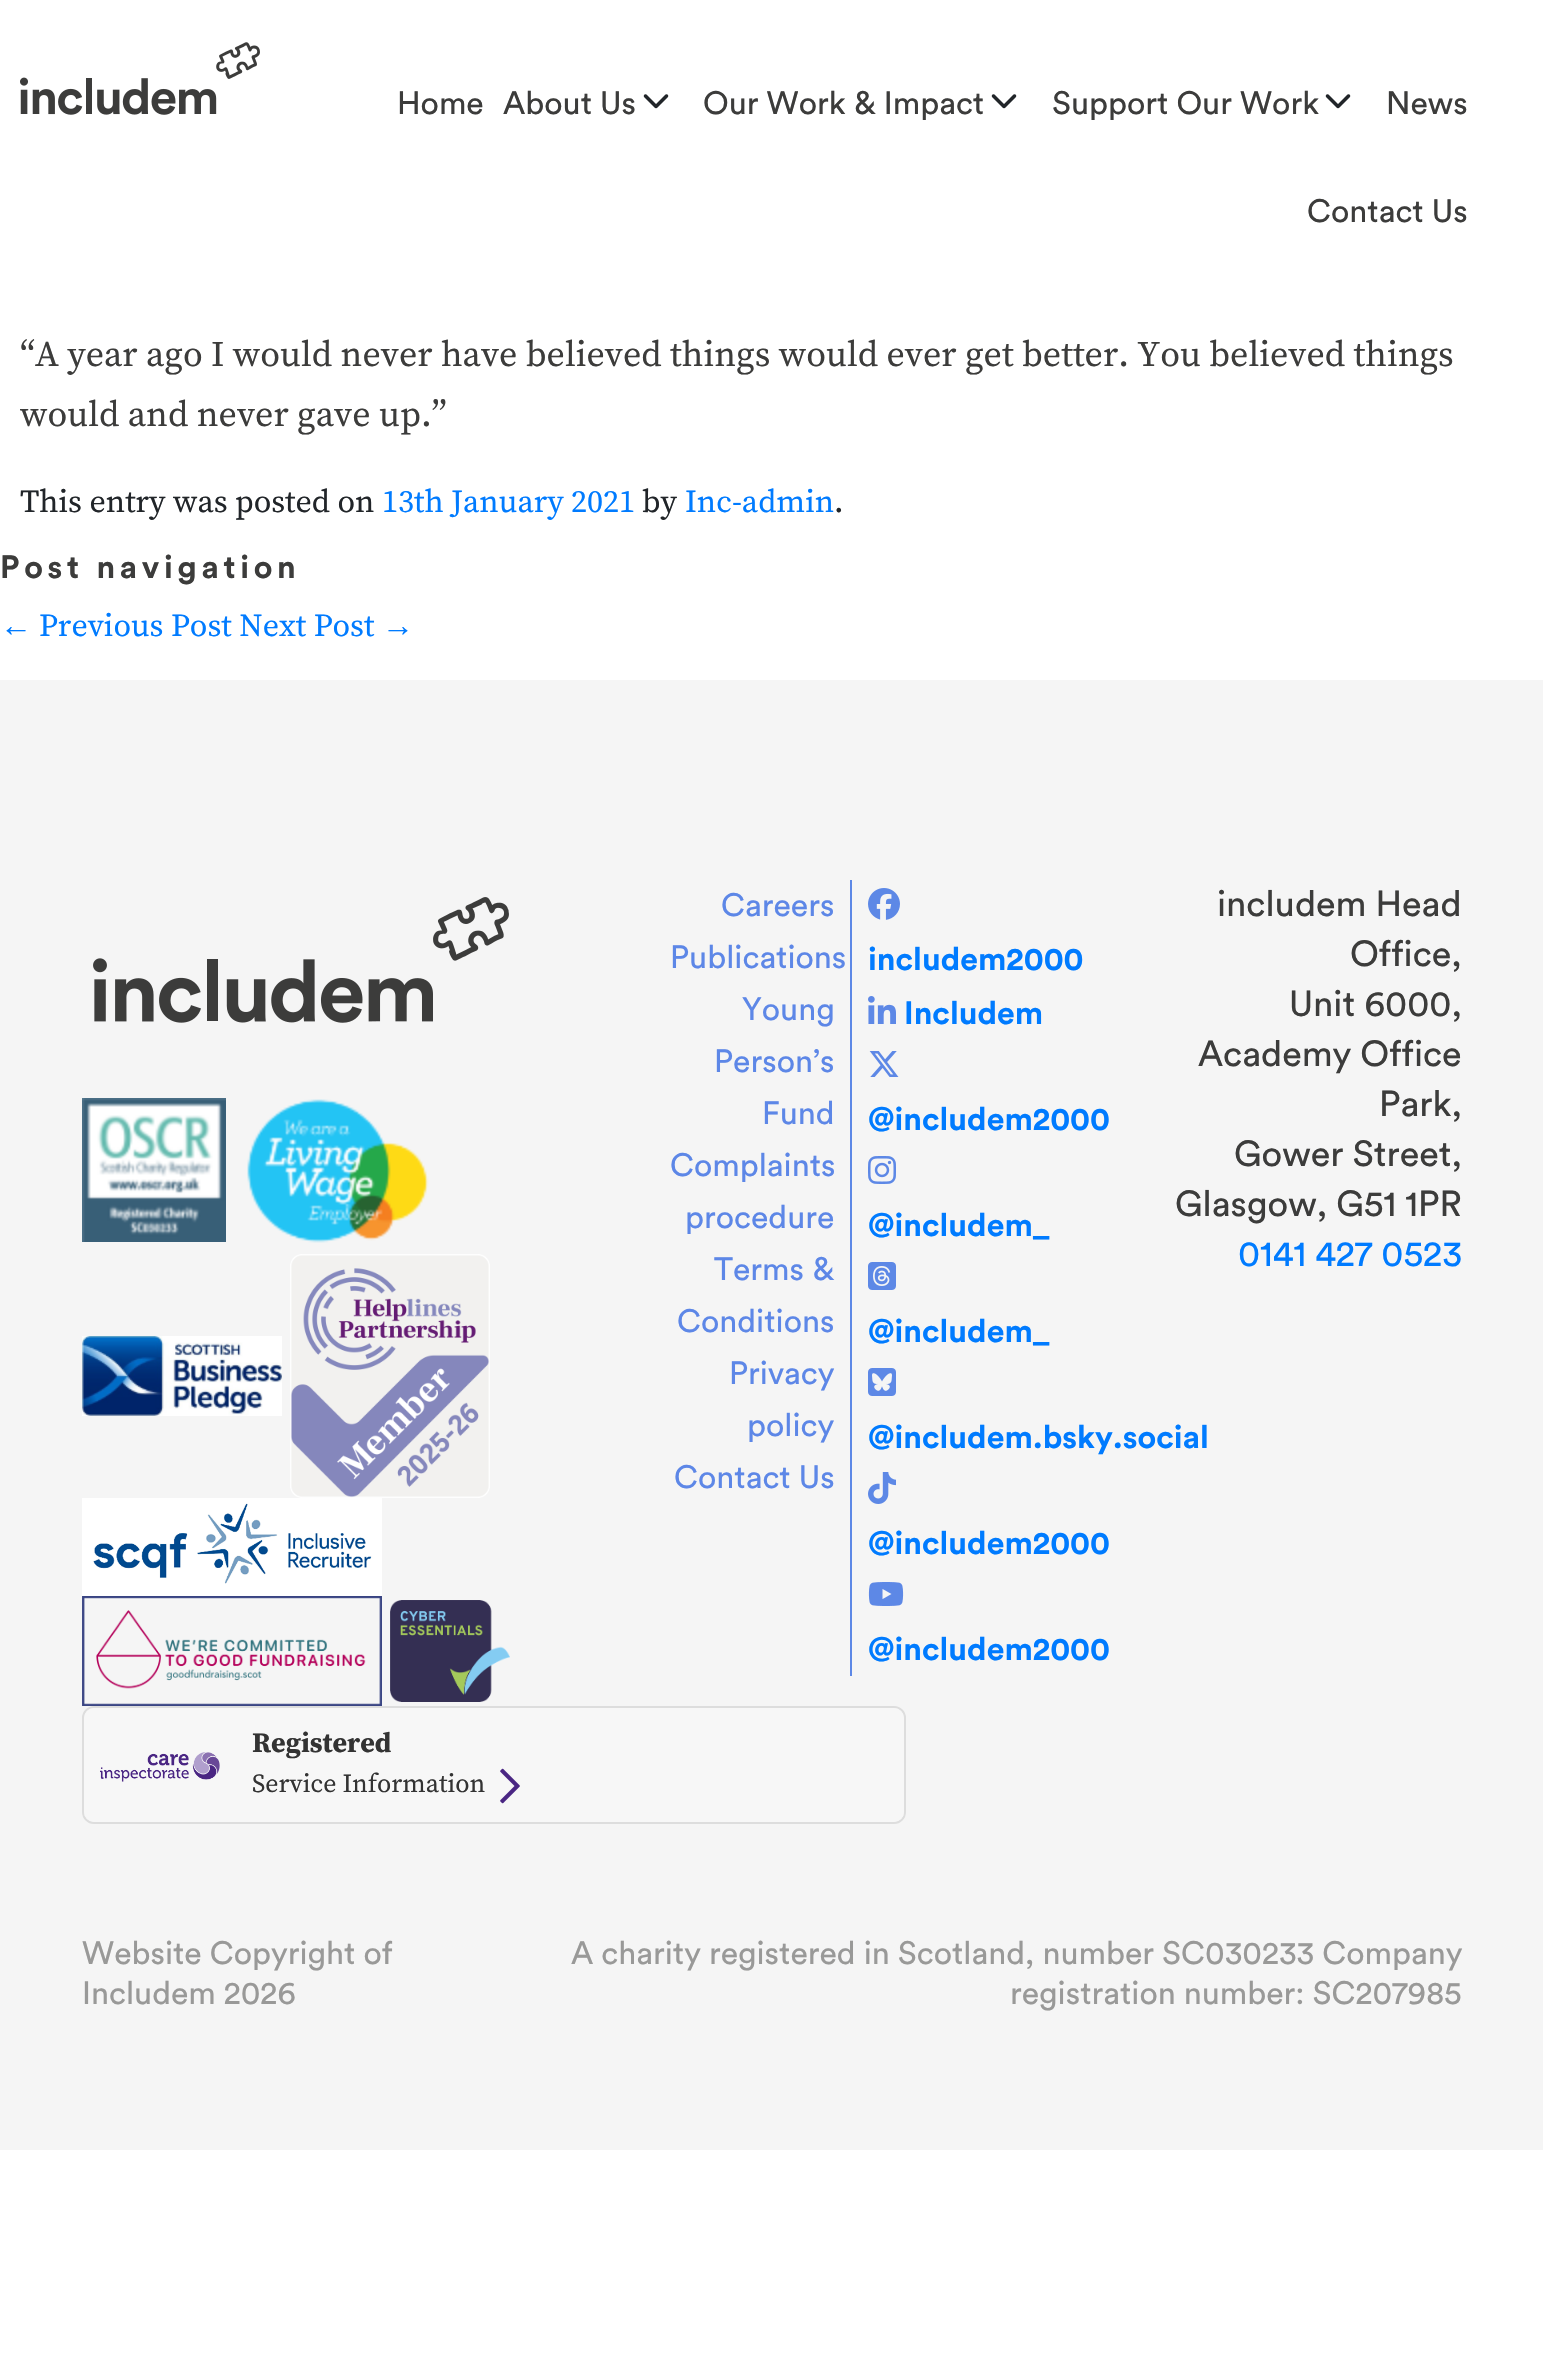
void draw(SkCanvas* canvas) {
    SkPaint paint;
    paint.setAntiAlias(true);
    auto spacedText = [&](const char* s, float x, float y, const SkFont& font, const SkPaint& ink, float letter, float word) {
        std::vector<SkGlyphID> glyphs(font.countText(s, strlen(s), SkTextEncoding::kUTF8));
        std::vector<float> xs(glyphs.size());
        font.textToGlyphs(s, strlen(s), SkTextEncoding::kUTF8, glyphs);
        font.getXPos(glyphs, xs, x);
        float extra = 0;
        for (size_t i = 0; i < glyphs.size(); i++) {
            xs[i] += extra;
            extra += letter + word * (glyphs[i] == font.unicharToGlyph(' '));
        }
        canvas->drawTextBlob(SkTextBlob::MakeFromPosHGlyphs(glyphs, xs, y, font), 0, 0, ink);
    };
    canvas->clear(0xFFFFFFFF);
    canvas->drawImageRect(SkImages::DeferredFromEncodedData(SkData::MakeFromFileName("img1.png")), SkRect::MakeXYWH(20, 42, 240, 73), SkSamplingOptions());
    SkFont font1(fontMgr->matchFamilyStyle("Circular", SkFontStyle::Normal()), 32);
    font1.setSubpixel(true);
    paint.setColor(0xFF3C3C3B);
    canvas->drawString("Home", 397, 114, font1, paint);
    canvas->drawString("About Us", 503, 114, font1, paint);
    canvas->drawImageRect(SkImages::DeferredFromEncodedData(SkData::MakeFromFileName("img2.png")), SkRect::MakeXYWH(643, 94, 26, 15), SkSamplingOptions());
    canvas->drawString("Our Work & Impact", 703, 114, font1, paint);
    canvas->drawImageRect(SkImages::DeferredFromEncodedData(SkData::MakeFromFileName("img2.png")), SkRect::MakeXYWH(991, 94, 26, 15), SkSamplingOptions());
    canvas->drawString("Support Our Work", 1052, 114, font1, paint);
    canvas->drawImageRect(SkImages::DeferredFromEncodedData(SkData::MakeFromFileName("img2.png")), SkRect::MakeXYWH(1325, 94, 26, 15), SkSamplingOptions());
    canvas->drawString("News", 1386, 114, font1, paint);
    canvas->drawString("Contact Us", 1307, 222, font1, paint);
    SkFont font2(fontMgr->matchFamilyStyle("Source Serif Pro", SkFontStyle::Normal()), 36);
    font2.setSubpixel(true);
    canvas->drawString("“A year ago I would never have believed things would ever get better. You believed things", 20, 366, font2, paint);
    canvas->drawString("would and never gave up.”", 20, 426, font2, paint);
    SkFont font3(fontMgr->matchFamilyStyle("Source Serif Pro", SkFontStyle::Normal()), 32);
    font3.setSubpixel(true);
    paint.setColor(0xFF212529);
    canvas->drawString("This entry was posted on", 20, 512, font3, paint);
    paint.setColor(0xFF007BFF);
    canvas->drawString("13th January 2021", 382, 512, font3, paint);
    paint.setColor(0xFF212529);
    canvas->drawString("by", 642, 512, font3, paint);
    paint.setColor(0xFF007BFF);
    canvas->drawString("Inc-admin", 685, 512, font3, paint);
    paint.setColor(0xFF212529);
    canvas->drawString(".", 834, 512, font3, paint);
    SkFont font4(fontMgr->matchFamilyStyle("Circular", SkFontStyle::Bold()), 32);
    font4.setSubpixel(true);
    paint.setColor(0xFF3C3C3B);
    spacedText("Post navigation", 0, 578, font4, paint, 4.75f, 0);
    SkFont font5(fontMgr->matchFamilyStyle("Liberation Serif", SkFontStyle::Normal()), 32);
    font5.setSubpixel(true);
    paint.setColor(0xFF007BFF);
    canvas->drawString("←", 0, 636, font5, paint);
    canvas->drawString("Previous Post Next Post", 39, 636, font3, paint);
    canvas->drawString("→", 382, 636, font5, paint);
    paint.setColor(0xFFF5F5F5);
    canvas->drawRect(SkRect::MakeXYWH(0, 680, 1543, 1470), paint);
    paint.setColor(0xFF5D87E7);
    canvas->drawString("Careers", 721, 916, font1, paint);
    canvas->drawString("Publications", 670, 968, font1, paint);
    canvas->drawString("Young", 742, 1020, font1, paint);
    canvas->drawString("Person’s", 714, 1072, font1, paint);
    canvas->drawString("Fund", 762, 1124, font1, paint);
    canvas->drawString("Complaints", 670, 1176, font1, paint);
    canvas->drawString("procedure", 685, 1228, font1, paint);
    canvas->drawString("Terms &", 714, 1280, font1, paint);
    canvas->drawString("Conditions", 677, 1332, font1, paint);
    canvas->drawString("Privacy", 729, 1384, font1, paint);
    canvas->drawString("policy", 747, 1436, font1, paint);
    canvas->drawString("Contact Us", 674, 1488, font1, paint);
    paint.setColor(0xFF5D88E6);
    canvas->drawRect(SkRect::MakeXYWH(850, 880, 2, 796), paint);
    canvas->drawImageRect(SkImages::DeferredFromEncodedData(SkData::MakeFromFileName("img3.png")), SkRect::MakeXYWH(868, 888, 32, 32), SkSamplingOptions());
    paint.setColor(0xFF007BFF);
    canvas->drawString("includem2000", 868, 970, font4, paint);
    canvas->drawImageRect(SkImages::DeferredFromEncodedData(SkData::MakeFromFileName("img4.png")), SkRect::MakeXYWH(868, 996, 28, 28), SkSamplingOptions());
    canvas->drawString("Includem", 904, 1024, font4, paint);
    canvas->drawImageRect(SkImages::DeferredFromEncodedData(SkData::MakeFromFileName("img5.png")), SkRect::MakeXYWH(869, 1051, 30, 26), SkSamplingOptions());
    canvas->drawString("@includem2000", 868, 1130, font4, paint);
    canvas->drawImageRect(SkImages::DeferredFromEncodedData(SkData::MakeFromFileName("img6.png")), SkRect::MakeXYWH(868, 1156, 28, 28), SkSamplingOptions());
    canvas->drawString("@includem_", 868, 1236, font4, paint);
    canvas->drawImageRect(SkImages::DeferredFromEncodedData(SkData::MakeFromFileName("img7.png")), SkRect::MakeXYWH(868, 1262, 28, 28), SkSamplingOptions());
    canvas->drawString("@includem_", 868, 1342, font4, paint);
    canvas->drawImageRect(SkImages::DeferredFromEncodedData(SkData::MakeFromFileName("img8.png")), SkRect::MakeXYWH(868, 1368, 28, 28), SkSamplingOptions());
    canvas->drawString("@includem.bsky.social", 868, 1448, font4, paint);
    canvas->drawImageRect(SkImages::DeferredFromEncodedData(SkData::MakeFromFileName("img9.png")), SkRect::MakeXYWH(868, 1472, 28, 32), SkSamplingOptions());
    canvas->drawString("@includem2000", 868, 1554, font4, paint);
    canvas->drawImageRect(SkImages::DeferredFromEncodedData(SkData::MakeFromFileName("img10.png")), SkRect::MakeXYWH(868, 1582, 36, 24), SkSamplingOptions());
    canvas->drawString("@includem2000", 868, 1660, font4, paint);
    SkFont font6(fontMgr->matchFamilyStyle("Circular", SkFontStyle::Normal()), 36);
    font6.setSubpixel(true);
    paint.setColor(0xFF3C3C3B);
    canvas->drawString("includem Head", 1217, 916, font6, paint);
    canvas->drawString("Office,", 1350, 966, font6, paint);
    canvas->drawString("Unit 6000,", 1289, 1016, font6, paint);
    canvas->drawString("Academy Office", 1198, 1066, font6, paint);
    canvas->drawString("Park,", 1379, 1116, font6, paint);
    canvas->drawString("Gower Street,", 1234, 1166, font6, paint);
    canvas->drawString("Glasgow, G51 1PR", 1175, 1216, font6, paint);
    paint.setColor(0xFF007BFF);
    canvas->drawString("0141 427 0523", 1238, 1266, font6, paint);
    canvas->drawImageRect(SkImages::DeferredFromEncodedData(SkData::MakeFromFileName("img11.png")), SkRect::MakeXYWH(93, 897, 416, 126), SkSamplingOptions());
    canvas->drawImageRect(SkImages::DeferredFromEncodedData(SkData::MakeFromFileName("img12.png")), SkRect::MakeXYWH(82, 1098, 144, 144), SkSamplingOptions());
    canvas->drawImageRect(SkImages::DeferredFromEncodedData(SkData::MakeFromFileName("img13.png")), SkRect::MakeXYWH(247, 1099, 182, 144), SkSamplingOptions());
    canvas->drawImageRect(SkImages::DeferredFromEncodedData(SkData::MakeFromFileName("img14.png")), SkRect::MakeXYWH(82, 1336, 200, 80), SkSamplingOptions());
    canvas->drawImageRect(SkImages::DeferredFromEncodedData(SkData::MakeFromFileName("img15.png")), SkRect::MakeXYWH(290, 1254, 200, 244), SkSamplingOptions());
    canvas->drawImageRect(SkImages::DeferredFromEncodedData(SkData::MakeFromFileName("img16.png")), SkRect::MakeXYWH(82, 1498, 300, 98), SkSamplingOptions());
    canvas->drawImageRect(SkImages::DeferredFromEncodedData(SkData::MakeFromFileName("img17.png")), SkRect::MakeXYWH(82, 1596, 300, 110), SkSamplingOptions());
    canvas->drawImageRect(SkImages::DeferredFromEncodedData(SkData::MakeFromFileName("img18.png")), SkRect::MakeXYWH(390, 1600, 120, 102), SkSamplingOptions());
    paint.setStyle(SkPaint::kStroke_Style);
    paint.setStrokeWidth(2);
    paint.setColor(0xFFDDDDDD);
    canvas->drawRoundRect(SkRect::MakeXYWH(83, 1707, 822, 116), 11, 11, paint);
    paint.setStyle(SkPaint::kFill_Style);
    paint.setColor(0xFFF7F7F7);
    canvas->drawRoundRect(SkRect::MakeXYWH(84, 1708, 820, 114), 10, 10, paint);
    canvas->drawImageRect(SkImages::DeferredFromEncodedData(SkData::MakeFromFileName("img19.png")), SkRect::MakeXYWH(100, 1752, 120, 30), SkSamplingOptions());
    SkFont font7(fontMgr->matchFamilyStyle("Source Serif Pro", SkFontStyle::Bold()), 28);
    font7.setSubpixel(true);
    paint.setColor(0xFF333333);
    canvas->drawString("Registered", 252, 1752, font7, paint);
    SkFont font8(fontMgr->matchFamilyStyle("Source Serif Pro", SkFontStyle::Normal()), 26);
    font8.setSubpixel(true);
    canvas->drawString("Service Information", 252, 1792, font8, paint);
    canvas->drawImageRect(SkImages::DeferredFromEncodedData(SkData::MakeFromFileName("img20.png")), SkRect::MakeXYWH(500, 1768, 20, 36), SkSamplingOptions());
    paint.setColor(0xFF999998);
    canvas->drawString("Website Copyright of", 82, 1964, font1, paint);
    canvas->drawString("Includem 2026", 82, 2004, font1, paint);
    canvas->drawString("A charity registered in Scotland, number SC030233 Company", 571, 1964, font1, paint);
    canvas->drawString("registration number: SC207985", 1010, 2004, font1, paint);
}
